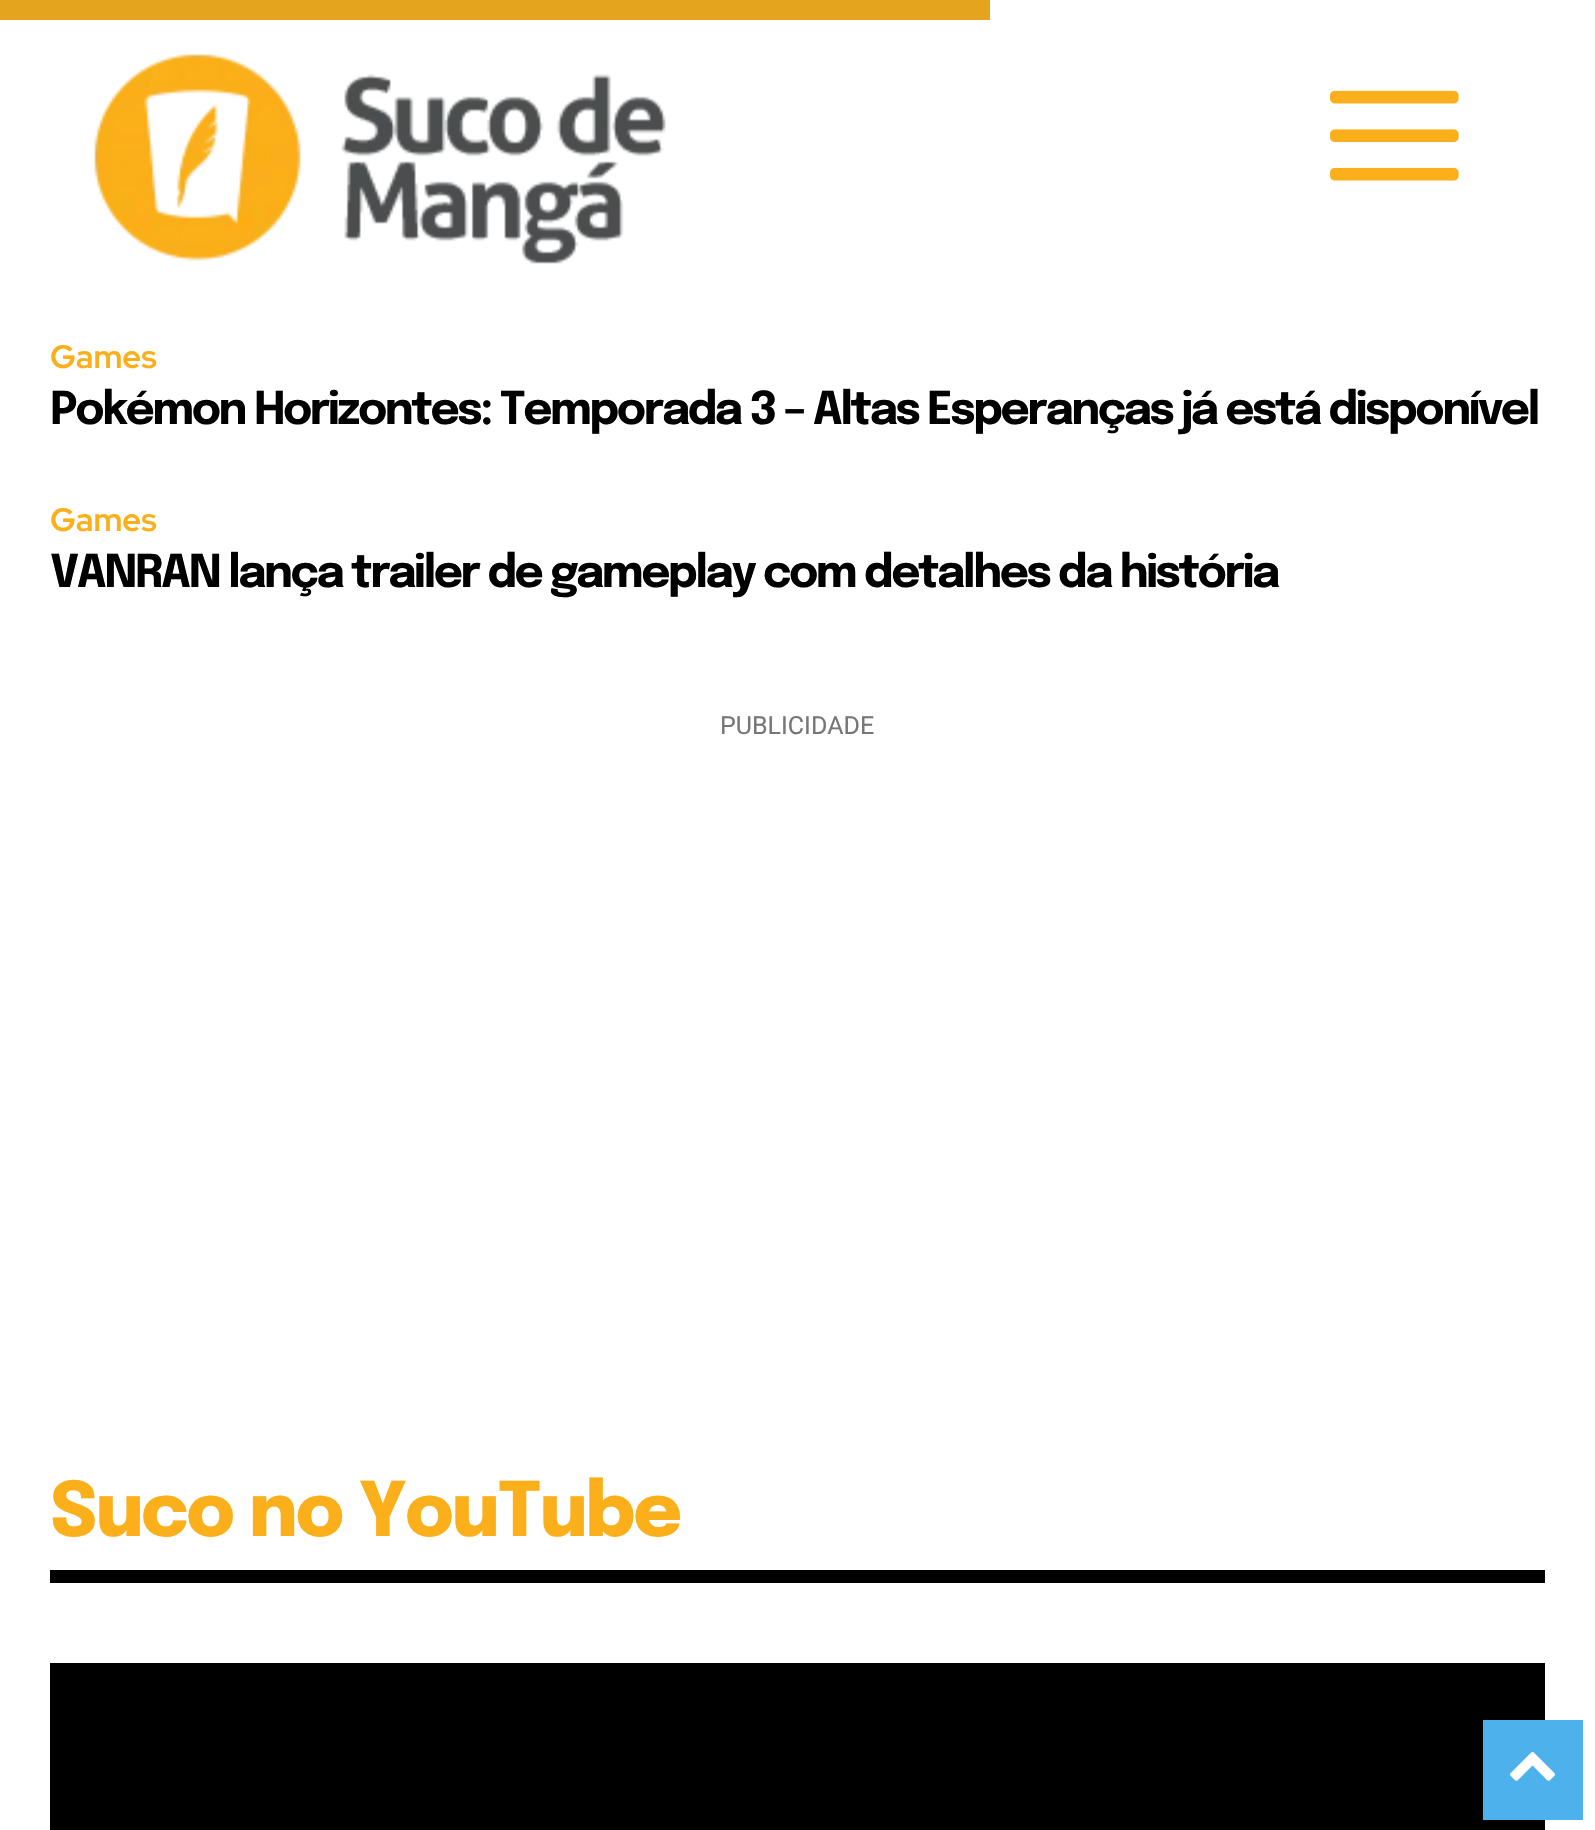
void draw(SkCanvas* canvas) {
    SkPaint paint;
    paint.setAntiAlias(true);
    auto spacedText = [&](const char* s, float x, float y, const SkFont& font, const SkPaint& ink, float letter, float word) {
        std::vector<SkGlyphID> glyphs(font.countText(s, strlen(s), SkTextEncoding::kUTF8));
        std::vector<float> xs(glyphs.size());
        font.textToGlyphs(s, strlen(s), SkTextEncoding::kUTF8, glyphs);
        font.getXPos(glyphs, xs, x);
        float extra = 0;
        for (size_t i = 0; i < glyphs.size(); i++) {
            xs[i] += extra;
            extra += letter + word * (glyphs[i] == font.unicharToGlyph(' '));
        }
        canvas->drawTextBlob(SkTextBlob::MakeFromPosHGlyphs(glyphs, xs, y, font), 0, 0, ink);
    };
    canvas->clear(0xFFFFFFFF);
    paint.setColor(0xFFE4A41E);
    canvas->drawRect(SkRect::MakeXYWH(0, 0, 990, 20), paint);
    canvas->drawImageRect(SkImages::DeferredFromEncodedData(SkData::MakeFromFileName("img1.png")), SkRect::MakeXYWH(94, 53, 572, 211), SkSamplingOptions());
    canvas->drawImageRect(SkImages::DeferredFromEncodedData(SkData::MakeFromFileName("img2.png")), SkRect::MakeXYWH(1330, 90, 129, 91), SkSamplingOptions());
    SkFont font1(fontMgr->matchFamilyStyle("Red Hat Display", SkFontStyle::Bold()), 32.5f);
    font1.setSubpixel(true);
    paint.setColor(0xFFFBAF1A);
    canvas->drawString("Games", 50, 368, font1, paint);
    SkFont font2(fontMgr->matchFamilyStyle("Epilogue", SkFontStyle::Bold()), 45);
    font2.setSubpixel(true);
    paint.setColor(0xFF000000);
    spacedText("Pokémon Horizontes: Temporada 3 – Altas Esperanças já está disponível", 50, 424, font2, paint, -2.5f, 0);
    paint.setColor(0xFFFBAF1A);
    canvas->drawString("Games", 50, 531, font1, paint);
    paint.setColor(0xFF000000);
    spacedText("VANRAN lança trailer de gameplay com detalhes da história", 50, 587, font2, paint, -2.5f, 0);
    SkFont font3(fontMgr->matchFamilyStyle("Roboto", SkFontStyle::Normal()), 25);
    font3.setSubpixel(true);
    paint.setColor(0xFF767676);
    canvas->drawString("PUBLICIDADE", 720, 734, font3, paint);
    paint.setColor(0xFF000000);
    canvas->drawRect(SkRect::MakeXYWH(50, 1570, 1495, 13), paint);
    SkFont font4(fontMgr->matchFamilyStyle("Epilogue", SkFontStyle(800, SkFontStyle::kNormal_Width, SkFontStyle::kUpright_Slant)), 75);
    font4.setSubpixel(true);
    paint.setColor(0xFFFBAF1A);
    spacedText("Suco no YouTube", 50, 1536, font4, paint, -2.5f, 0);
    paint.setColor(0xFF000000);
    canvas->drawRect(SkRect::MakeXYWH(50, 1663, 1495, 167), paint);
    paint.setColor(0xFF4DB2EC);
    canvas->drawRect(SkRect::MakeXYWH(1483, 1720, 100, 100), paint);
    canvas->drawImageRect(SkImages::DeferredFromEncodedData(SkData::MakeFromFileName("img3.png")), SkRect::MakeXYWH(1510, 1752, 45, 29), SkSamplingOptions());
}
